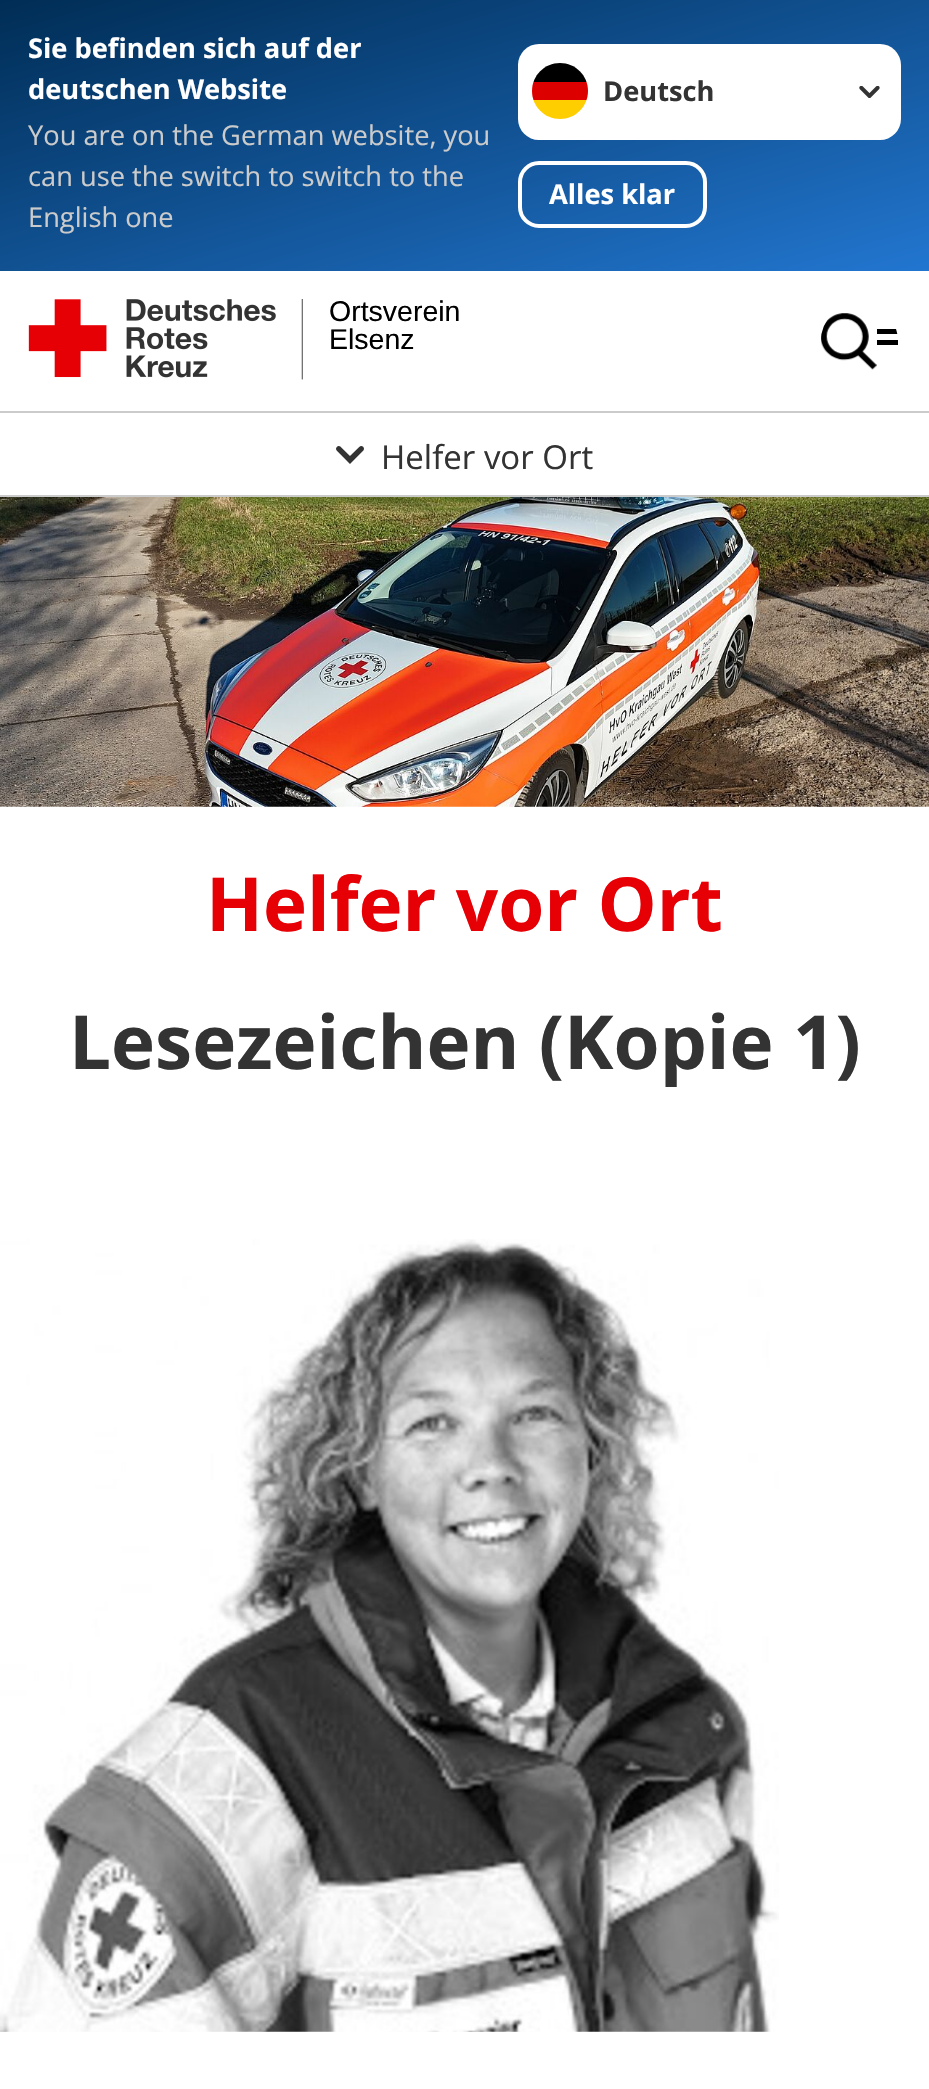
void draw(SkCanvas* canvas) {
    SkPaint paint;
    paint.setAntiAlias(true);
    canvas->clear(0xFFFFFFFF);
    {
        const SkColor colors[] = {0xFF002D55, 0xFF2276D0};
        const float stops[] = {0, 1};
        const SkPoint ends[] = {{392, -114}, {538, 386}};
        paint.setShader(SkGradientShader::MakeLinear(ends, colors, stops, 2, SkTileMode::kClamp));
        paint.setAlpha(255);
    }
    canvas->drawRect(SkRect::MakeXYWH(0, 0, 929, 271), paint);
    SkFont font1(fontMgr->matchFamilyStyle("Open Sans", SkFontStyle::Bold()), 27.25f);
    font1.setSubpixel(true);
    paint.setShader(nullptr);
    paint.setColor(0xFFFFFFFF);
    canvas->drawString("Sie befinden sich auf der", 28, 58, font1, paint);
    canvas->drawString("deutschen Website", 28, 99, font1, paint);
    SkFont font2(fontMgr->matchFamilyStyle("Open Sans", SkFontStyle::Normal()), 27.25f);
    font2.setSubpixel(true);
    paint.setColor(0xFFCBCBCB);
    canvas->drawString("You are on the German website, you", 28, 145, font2, paint);
    canvas->drawString("can use the switch to switch to the", 28, 186, font2, paint);
    canvas->drawString("English one", 28, 227, font2, paint);
    paint.setColor(0xFFFFFFFF);
    canvas->drawRoundRect(SkRect::MakeXYWH(518, 44, 383, 96), 21, 21, paint);
    canvas->save();
    canvas->clipPath(SkPathBuilder().moveTo(560, 63).cubicTo(575.5f, 63, 588, 75.5f, 588, 91).cubicTo(588, 106.5f, 575.5f, 119, 560, 119).cubicTo(544.5f, 119, 532, 106.5f, 532, 91).cubicTo(532, 75.5f, 544.5f, 63, 560, 63).close().detach(), true);
    paint.setColor(0xFFFFCE00);
    canvas->drawRect(SkRect::MakeXYWH(533, 100, 54, 19), paint);
    paint.setColor(0xFF000000);
    canvas->drawRect(SkRect::MakeXYWH(533, 63, 54, 19), paint);
    paint.setColor(0xFFDD0000);
    canvas->drawRect(SkRect::MakeXYWH(532, 82, 56, 18), paint);
    canvas->restore();
    canvas->drawImageRect(SkImages::DeferredFromEncodedData(SkData::MakeFromFileName("img1.png")), SkRect::MakeXYWH(859, 86, 21, 12), SkSamplingOptions());
    paint.setColor(0xFF333333);
    canvas->drawString("Deutsch", 603, 101, font1, paint);
    paint.setStyle(SkPaint::kStroke_Style);
    paint.setStrokeWidth(4);
    paint.setColor(0xFFFFFFFF);
    canvas->drawRoundRect(SkRect::MakeXYWH(520, 163, 185, 63), 19, 19, paint);
    paint.setStyle(SkPaint::kFill_Style);
    canvas->drawString("Alles klar", 549, 204, font1, paint);
    paint.setColor(0xFFCBCBCB);
    canvas->drawRect(SkRect::MakeXYWH(0, 411, 929, 2), paint);
    canvas->drawImageRect(SkImages::DeferredFromEncodedData(SkData::MakeFromFileName("img2.png")), SkRect::MakeXYWH(28, 299, 275, 81), SkSamplingOptions());
    SkFont font3(fontMgr->matchFamilyStyle("Liberation Sans", SkFontStyle::Normal()), 28.5f);
    font3.setSubpixel(true);
    paint.setColor(0xFF000000);
    canvas->drawString("Ortsverein", 329, 321, font3, paint);
    canvas->drawString("Elsenz", 329, 349, font3, paint);
    canvas->drawImageRect(SkImages::DeferredFromEncodedData(SkData::MakeFromFileName("img3.png")), SkRect::MakeXYWH(821, 313, 56, 57), SkSamplingOptions());
    canvas->save();
    canvas->clipPath(SkPathBuilder().moveTo(859.5f, 303).cubicTo(881, 303, 898, 320, 898, 341.5f).cubicTo(898, 363, 881, 380, 859.5f, 380).cubicTo(838, 380, 821, 363, 821, 341.5f).cubicTo(821, 320, 838, 303, 859.5f, 303).close().detach(), true);
    canvas->drawRect(SkRect::MakeXYWH(877, 329, 21, 5), paint);
    canvas->restore();
    canvas->drawRect(SkRect::MakeXYWH(877, 340, 21, 5), paint);
    paint.setColor(0xFFCBCBCB);
    canvas->drawRect(SkRect::MakeXYWH(0, 495, 929, 2), paint);
    canvas->drawImageRect(SkImages::DeferredFromEncodedData(SkData::MakeFromFileName("img4.png")), SkRect::MakeXYWH(336, 446, 28, 18), SkSamplingOptions());
    SkFont font4(fontMgr->matchFamilyStyle("Open Sans", SkFontStyle::Normal()), 33);
    font4.setSubpixel(true);
    paint.setColor(0xFF333333);
    canvas->drawString("Helfer vor Ort", 381, 469, font4, paint);
    canvas->drawImageRect(SkImages::DeferredFromEncodedData(SkData::MakeFromFileName("img5.png")), SkRect::MakeXYWH(0, 497, 929, 310), SkSamplingOptions());
    SkFont font5(fontMgr->matchFamilyStyle("Open Sans", SkFontStyle::Bold()), 74.5f);
    font5.setSubpixel(true);
    paint.setColor(0xFFE60005);
    canvas->drawString("Helfer vor Ort", 206, 931, font5, paint);
    paint.setColor(0xFF333333);
    canvas->drawString("Lesezeichen (Kopie 1)", 69, 1069, font5, paint);
    canvas->drawImageRect(SkImages::DeferredFromEncodedData(SkData::MakeFromFileName("img6.png")), SkRect::MakeXYWH(0, 1239, 779, 793), SkSamplingOptions());
}
